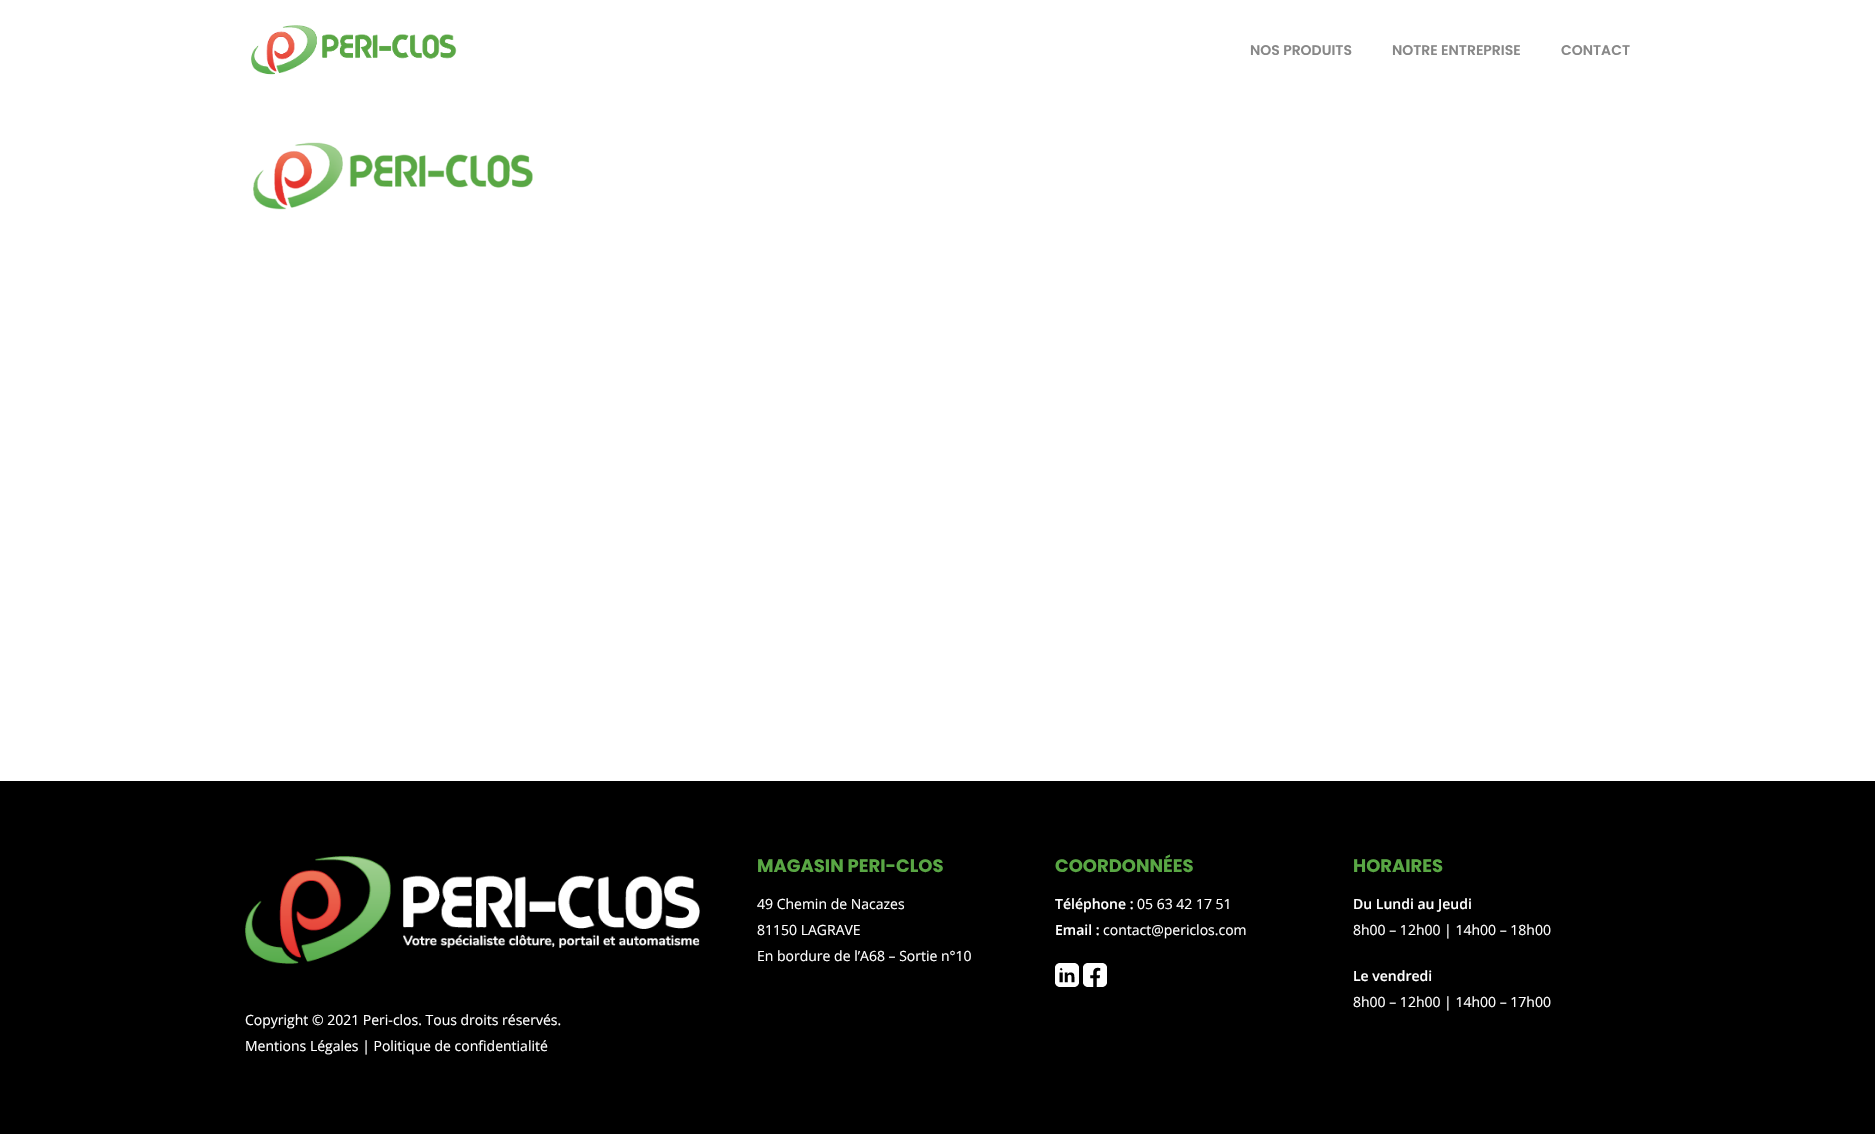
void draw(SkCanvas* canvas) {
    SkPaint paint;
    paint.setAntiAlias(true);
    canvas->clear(0xFFFFFFFF);
    canvas->drawImageRect(SkImages::DeferredFromEncodedData(SkData::MakeFromFileName("img1.png")), SkRect::MakeXYWH(251, 25, 206, 50), SkSamplingOptions());
    SkFont font1(fontMgr->matchFamilyStyle("Poppins", SkFontStyle(600, SkFontStyle::kNormal_Width, SkFontStyle::kUpright_Slant)), 14);
    font1.setSubpixel(true);
    paint.setColor(0xFF888888);
    canvas->drawString("NOS PRODUITS", 1250, 55, font1, paint);
    canvas->drawString("NOTRE ENTREPRISE", 1392, 55, font1, paint);
    canvas->drawString("CONTACT", 1561, 55, font1, paint);
    canvas->drawImageRect(SkImages::DeferredFromEncodedData(SkData::MakeFromFileName("img2.png")), SkRect::MakeXYWH(253, 142, 280, 68), SkSamplingOptions());
    paint.setColor(0xFF000000);
    canvas->drawRect(SkRect::MakeXYWH(0, 781, 1875, 353), paint);
    SkFont font2(fontMgr->matchFamilyStyle("Poppins", SkFontStyle::Bold()), 18);
    font2.setSubpixel(true);
    paint.setColor(0xFF59A744);
    canvas->drawString("MAGASIN PERI-CLOS", 757, 872, font2, paint);
    SkFont font3(fontMgr->matchFamilyStyle("Open Sans", SkFontStyle::Normal()), 14);
    font3.setSubpixel(true);
    paint.setColor(0xFFFFFFFF);
    canvas->drawString("49 Chemin de Nacazes", 757, 909, font3, paint);
    canvas->drawString("81150 LAGRAVE", 757, 935, font3, paint);
    canvas->drawString("En bordure de l’A68 – Sortie n°10", 757, 961, font3, paint);
    paint.setColor(0xFF59A744);
    canvas->drawString("COORDONNÉES", 1055, 872, font2, paint);
    SkFont font4(fontMgr->matchFamilyStyle("Open Sans", SkFontStyle(600, SkFontStyle::kNormal_Width, SkFontStyle::kUpright_Slant)), 14);
    font4.setSubpixel(true);
    paint.setColor(0xFFFFFFFF);
    canvas->drawString("Téléphone :", 1055, 909, font4, paint);
    canvas->drawString("05 63 42 17 51", 1137, 909, font3, paint);
    canvas->drawString("Email :", 1055, 935, font4, paint);
    canvas->drawString("contact@periclos.com", 1103, 935, font3, paint);
    canvas->drawImageRect(SkImages::DeferredFromEncodedData(SkData::MakeFromFileName("img3.png")), SkRect::MakeXYWH(1055, 963, 24, 24), SkSamplingOptions());
    canvas->drawImageRect(SkImages::DeferredFromEncodedData(SkData::MakeFromFileName("img4.png")), SkRect::MakeXYWH(1083, 963, 24, 24), SkSamplingOptions());
    paint.setColor(0xFF59A744);
    canvas->drawString("HORAIRES", 1353, 872, font2, paint);
    paint.setColor(0xFFFFFFFF);
    canvas->drawString("Du Lundi au Jeudi", 1353, 909, font4, paint);
    canvas->drawString("8h00 – 12h00 | 14h00 – 18h00", 1353, 935, font3, paint);
    canvas->drawString("Le vendredi", 1353, 981, font4, paint);
    canvas->drawString("8h00 – 12h00 | 14h00 – 17h00", 1353, 1007, font3, paint);
    canvas->drawImageRect(SkImages::DeferredFromEncodedData(SkData::MakeFromFileName("img5.png")), SkRect::MakeXYWH(245, 856, 455, 108), SkSamplingOptions());
    canvas->drawString("Copyright © 2021 Peri-clos. Tous droits réservés.", 245, 1025, font3, paint);
    canvas->drawString("Mentions Légales | Politique de confidentialité", 245, 1051, font3, paint);
}
